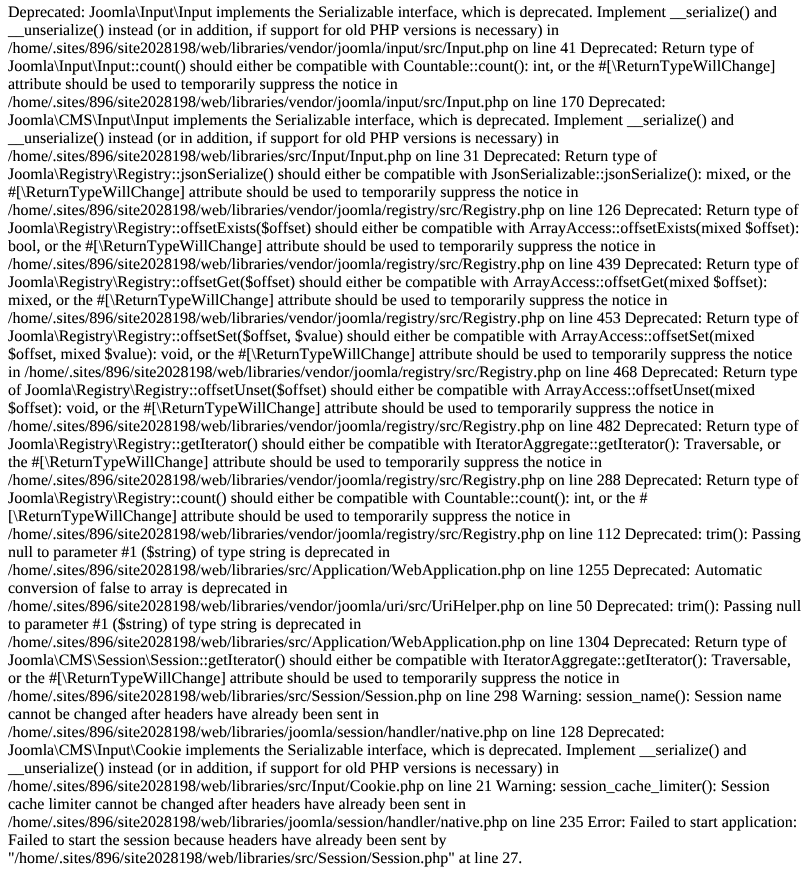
void draw(SkCanvas* canvas) {
    SkPaint paint;
    paint.setAntiAlias(true);
    canvas->clear(0xFFFFFFFF);
    SkFont font1(fontMgr->matchFamilyStyle("Liberation Serif", SkFontStyle::Normal()), 16);
    font1.setSubpixel(true);
    paint.setColor(0xFF000000);
    canvas->drawString("Deprecated: Joomla\\Input\\Input implements the Serializable interface, which is deprecated. Implement __serialize() and", 8, 17, font1, paint);
    canvas->drawString("__unserialize() instead (or in addition, if support for old PHP versions is necessary) in", 8, 35, font1, paint);
    canvas->drawString("/home/.sites/896/site2028198/web/libraries/vendor/joomla/input/src/Input.php on line 41 Deprecated: Return type of", 8, 53, font1, paint);
    canvas->drawString("Joomla\\Input\\Input::count() should either be compatible with Countable::count(): int, or the #[\\ReturnTypeWillChange]", 8, 71, font1, paint);
    canvas->drawString("attribute should be used to temporarily suppress the notice in", 8, 89, font1, paint);
    canvas->drawString("/home/.sites/896/site2028198/web/libraries/vendor/joomla/input/src/Input.php on line 170 Deprecated:", 8, 107, font1, paint);
    canvas->drawString("Joomla\\CMS\\Input\\Input implements the Serializable interface, which is deprecated. Implement __serialize() and", 8, 125, font1, paint);
    canvas->drawString("__unserialize() instead (or in addition, if support for old PHP versions is necessary) in", 8, 143, font1, paint);
    canvas->drawString("/home/.sites/896/site2028198/web/libraries/src/Input/Input.php on line 31 Deprecated: Return type of", 8, 161, font1, paint);
    canvas->drawString("Joomla\\Registry\\Registry::jsonSerialize() should either be compatible with JsonSerializable::jsonSerialize(): mixed, or the", 8, 179, font1, paint);
    canvas->drawString("#[\\ReturnTypeWillChange] attribute should be used to temporarily suppress the notice in", 8, 197, font1, paint);
    canvas->drawString("/home/.sites/896/site2028198/web/libraries/vendor/joomla/registry/src/Registry.php on line 126 Deprecated: Return type of", 8, 215, font1, paint);
    canvas->drawString("Joomla\\Registry\\Registry::offsetExists($offset) should either be compatible with ArrayAccess::offsetExists(mixed $offset):", 8, 233, font1, paint);
    canvas->drawString("bool, or the #[\\ReturnTypeWillChange] attribute should be used to temporarily suppress the notice in", 8, 251, font1, paint);
    canvas->drawString("/home/.sites/896/site2028198/web/libraries/vendor/joomla/registry/src/Registry.php on line 439 Deprecated: Return type of", 8, 269, font1, paint);
    canvas->drawString("Joomla\\Registry\\Registry::offsetGet($offset) should either be compatible with ArrayAccess::offsetGet(mixed $offset):", 8, 287, font1, paint);
    canvas->drawString("mixed, or the #[\\ReturnTypeWillChange] attribute should be used to temporarily suppress the notice in", 8, 305, font1, paint);
    canvas->drawString("/home/.sites/896/site2028198/web/libraries/vendor/joomla/registry/src/Registry.php on line 453 Deprecated: Return type of", 8, 323, font1, paint);
    canvas->drawString("Joomla\\Registry\\Registry::offsetSet($offset, $value) should either be compatible with ArrayAccess::offsetSet(mixed", 8, 341, font1, paint);
    canvas->drawString("$offset, mixed $value): void, or the #[\\ReturnTypeWillChange] attribute should be used to temporarily suppress the notice", 8, 359, font1, paint);
    canvas->drawString("in /home/.sites/896/site2028198/web/libraries/vendor/joomla/registry/src/Registry.php on line 468 Deprecated: Return type", 8, 377, font1, paint);
    canvas->drawString("of Joomla\\Registry\\Registry::offsetUnset($offset) should either be compatible with ArrayAccess::offsetUnset(mixed", 8, 395, font1, paint);
    canvas->drawString("$offset): void, or the #[\\ReturnTypeWillChange] attribute should be used to temporarily suppress the notice in", 8, 413, font1, paint);
    canvas->drawString("/home/.sites/896/site2028198/web/libraries/vendor/joomla/registry/src/Registry.php on line 482 Deprecated: Return type of", 8, 431, font1, paint);
    canvas->drawString("Joomla\\Registry\\Registry::getIterator() should either be compatible with IteratorAggregate::getIterator(): Traversable, or", 8, 449, font1, paint);
    canvas->drawString("the #[\\ReturnTypeWillChange] attribute should be used to temporarily suppress the notice in", 8, 467, font1, paint);
    canvas->drawString("/home/.sites/896/site2028198/web/libraries/vendor/joomla/registry/src/Registry.php on line 288 Deprecated: Return type of", 8, 485, font1, paint);
    canvas->drawString("Joomla\\Registry\\Registry::count() should either be compatible with Countable::count(): int, or the #", 8, 503, font1, paint);
    canvas->drawString("[\\ReturnTypeWillChange] attribute should be used to temporarily suppress the notice in", 8, 521, font1, paint);
    canvas->drawString("/home/.sites/896/site2028198/web/libraries/vendor/joomla/registry/src/Registry.php on line 112 Deprecated: trim(): Passing", 8, 539, font1, paint);
    canvas->drawString("null to parameter #1 ($string) of type string is deprecated in", 8, 557, font1, paint);
    canvas->drawString("/home/.sites/896/site2028198/web/libraries/src/Application/WebApplication.php on line 1255 Deprecated: Automatic", 8, 575, font1, paint);
    canvas->drawString("conversion of false to array is deprecated in", 8, 593, font1, paint);
    canvas->drawString("/home/.sites/896/site2028198/web/libraries/vendor/joomla/uri/src/UriHelper.php on line 50 Deprecated: trim(): Passing null", 8, 611, font1, paint);
    canvas->drawString("to parameter #1 ($string) of type string is deprecated in", 8, 629, font1, paint);
    canvas->drawString("/home/.sites/896/site2028198/web/libraries/src/Application/WebApplication.php on line 1304 Deprecated: Return type of", 8, 647, font1, paint);
    canvas->drawString("Joomla\\CMS\\Session\\Session::getIterator() should either be compatible with IteratorAggregate::getIterator(): Traversable,", 8, 665, font1, paint);
    canvas->drawString("or the #[\\ReturnTypeWillChange] attribute should be used to temporarily suppress the notice in", 8, 683, font1, paint);
    canvas->drawString("/home/.sites/896/site2028198/web/libraries/src/Session/Session.php on line 298 Warning: session_name(): Session name", 8, 701, font1, paint);
    canvas->drawString("cannot be changed after headers have already been sent in", 8, 719, font1, paint);
    canvas->drawString("/home/.sites/896/site2028198/web/libraries/joomla/session/handler/native.php on line 128 Deprecated:", 8, 737, font1, paint);
    canvas->drawString("Joomla\\CMS\\Input\\Cookie implements the Serializable interface, which is deprecated. Implement __serialize() and", 8, 755, font1, paint);
    canvas->drawString("__unserialize() instead (or in addition, if support for old PHP versions is necessary) in", 8, 773, font1, paint);
    canvas->drawString("/home/.sites/896/site2028198/web/libraries/src/Input/Cookie.php on line 21 Warning: session_cache_limiter(): Session", 8, 791, font1, paint);
    canvas->drawString("cache limiter cannot be changed after headers have already been sent in", 8, 809, font1, paint);
    canvas->drawString("/home/.sites/896/site2028198/web/libraries/joomla/session/handler/native.php on line 235 Error: Failed to start application:", 8, 827, font1, paint);
    canvas->drawString("Failed to start the session because headers have already been sent by", 8, 845, font1, paint);
    canvas->drawString("\"/home/.sites/896/site2028198/web/libraries/src/Session/Session.php\" at line 27.", 8, 863, font1, paint);
}
